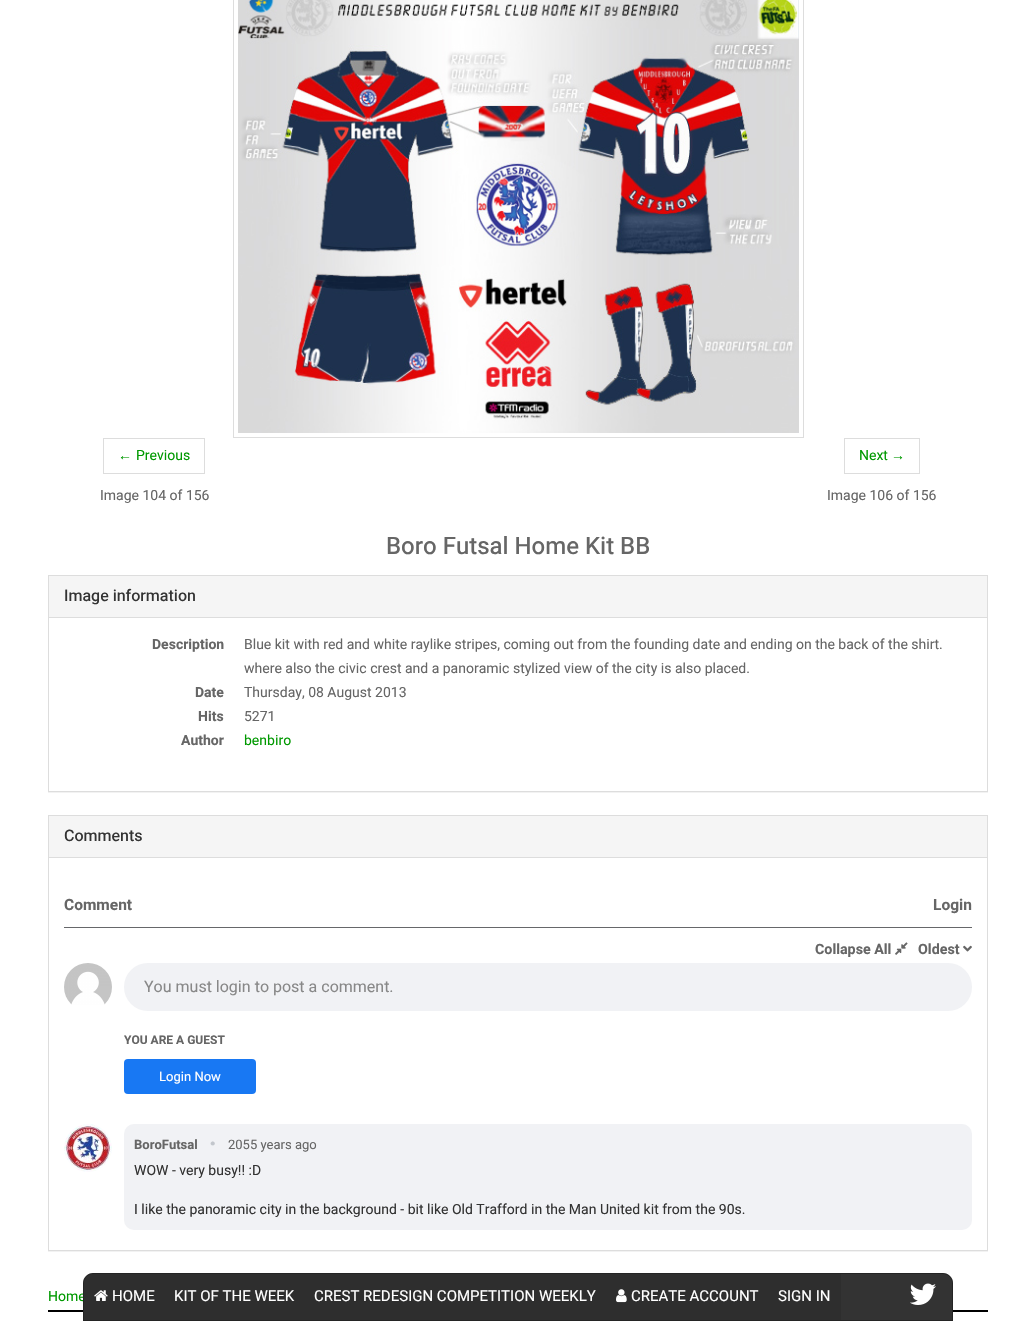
void draw(SkCanvas* canvas) {
    SkPaint paint;
    paint.setAntiAlias(true);
    canvas->clear(0xFFFFFFFF);
    paint.setStyle(SkPaint::kStroke_Style);
    paint.setStrokeWidth(1);
    paint.setColor(0xFFDDDDDD);
    canvas->drawRect(SkRect::MakeXYWH(233.5f, -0.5f, 570, 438), paint);
    canvas->drawImageRect(SkImages::DeferredFromEncodedData(SkData::MakeFromFileName("img1.png")), SkRect::MakeXYWH(238, 0, 561, 433), SkSamplingOptions());
    canvas->drawRect(SkRect::MakeXYWH(103.5f, 438.5f, 101, 35), paint);
    SkFont font1(fontMgr->matchFamilyStyle("Liberation Sans", SkFontStyle::Normal()), 14);
    font1.setSubpixel(true);
    paint.setStyle(SkPaint::kFill_Style);
    paint.setColor(0xFF009900);
    canvas->drawString("←", 118, 460, font1, paint);
    SkFont font2(fontMgr->matchFamilyStyle("Heebo", SkFontStyle::Normal()), 14);
    font2.setSubpixel(true);
    canvas->drawString("Previous", 136, 460, font2, paint);
    paint.setColor(0xFF666666);
    canvas->drawString("Image 104 of 156", 100, 500, font2, paint);
    paint.setStyle(SkPaint::kStroke_Style);
    paint.setColor(0xFFDDDDDD);
    canvas->drawRect(SkRect::MakeXYWH(844.5f, 438.5f, 75, 35), paint);
    paint.setStyle(SkPaint::kFill_Style);
    paint.setColor(0xFF009900);
    canvas->drawString("Next", 859, 460, font2, paint);
    canvas->drawString("→", 891, 460, font1, paint);
    paint.setColor(0xFF666666);
    canvas->drawString("Image 106 of 156", 827, 500, font2, paint);
    SkFont font3(fontMgr->matchFamilyStyle("Heebo", SkFontStyle(500, SkFontStyle::kNormal_Width, SkFontStyle::kUpright_Slant)), 24);
    font3.setSubpixel(true);
    canvas->drawString("Boro Futsal Home Kit BB", 386, 554, font3, paint);
    canvas->save();
    canvas->clipRect(SkRect::MakeXYWH(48, 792, 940, 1));
    paint.setColor(0x0D000000);
    paint.setMaskFilter(SkMaskFilter::MakeBlur(kNormal_SkBlurStyle, 0.5f));
    canvas->drawRect(SkRect::MakeXYWH(48, 576, 940, 217), paint);
    paint.setMaskFilter(nullptr);
    canvas->restore();
    paint.setStyle(SkPaint::kStroke_Style);
    paint.setColor(0xFFDDDDDD);
    canvas->drawRect(SkRect::MakeXYWH(48.5f, 575.5f, 939, 216), paint);
    paint.setStyle(SkPaint::kFill_Style);
    paint.setColor(0xFFF5F5F5);
    canvas->drawRect(SkRect::MakeXYWH(49, 576, 938, 41), paint);
    paint.setColor(0xFFDDDDDD);
    canvas->drawRect(SkRect::MakeXYWH(49, 617, 938, 1), paint);
    SkFont font4(fontMgr->matchFamilyStyle("Heebo", SkFontStyle(500, SkFontStyle::kNormal_Width, SkFontStyle::kUpright_Slant)), 16);
    font4.setSubpixel(true);
    paint.setColor(0xFF333333);
    canvas->drawString("Image information", 64, 601, font4, paint);
    SkFont font5(fontMgr->matchFamilyStyle("Heebo", SkFontStyle::Bold()), 14);
    font5.setSubpixel(true);
    paint.setColor(0xFF666666);
    canvas->drawString("Description", 152, 649, font5, paint);
    canvas->drawString("Blue kit with red and white raylike stripes, coming out from the founding date and ending on the back of the shirt.", 244, 649, font2, paint);
    canvas->drawString("where also the civic crest and a panoramic stylized view of the city is also placed.", 244, 673, font2, paint);
    canvas->drawString("Date", 195, 697, font5, paint);
    canvas->drawString("Thursday, 08 August 2013", 244, 697, font2, paint);
    canvas->drawString("Hits", 198, 721, font5, paint);
    canvas->drawString("5271", 244, 721, font2, paint);
    canvas->drawString("Author", 181, 745, font5, paint);
    paint.setColor(0xFF009900);
    canvas->drawString("benbiro", 244, 745, font2, paint);
    canvas->save();
    canvas->clipRect(SkRect::MakeXYWH(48, 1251, 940, 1));
    paint.setColor(0x0D000000);
    paint.setMaskFilter(SkMaskFilter::MakeBlur(kNormal_SkBlurStyle, 0.5f));
    canvas->drawRect(SkRect::MakeXYWH(48, 816, 940, 436), paint);
    paint.setMaskFilter(nullptr);
    canvas->restore();
    paint.setStyle(SkPaint::kStroke_Style);
    paint.setColor(0xFFDDDDDD);
    canvas->drawRect(SkRect::MakeXYWH(48.5f, 815.5f, 939, 435), paint);
    paint.setStyle(SkPaint::kFill_Style);
    paint.setColor(0xFFF5F5F5);
    canvas->drawRect(SkRect::MakeXYWH(49, 816, 938, 41), paint);
    paint.setColor(0xFFDDDDDD);
    canvas->drawRect(SkRect::MakeXYWH(49, 857, 938, 1), paint);
    paint.setColor(0xFF333333);
    canvas->drawString("Comments", 64, 841, font4, paint);
    paint.setColor(0xFF66676A);
    canvas->drawRect(SkRect::MakeXYWH(64, 927, 908, 1), paint);
    SkFont font6(fontMgr->matchFamilyStyle("Heebo", SkFontStyle::Bold()), 15.5f);
    font6.setSubpixel(true);
    paint.setColor(0xFF666666);
    canvas->drawString("Comment", 64, 910, font6, paint);
    canvas->drawString("Login", 933, 910, font6, paint);
    SkFont font7(fontMgr->matchFamilyStyle("Heebo", SkFontStyle::Bold()), 14.25f);
    font7.setSubpixel(true);
    canvas->drawString("Collapse All", 815, 954, font7, paint);
    canvas->drawImageRect(SkImages::DeferredFromEncodedData(SkData::MakeFromFileName("img2.png")), SkRect::MakeXYWH(895, 942, 13, 13), SkSamplingOptions());
    canvas->drawString("Oldest", 918, 954, font7, paint);
    canvas->drawImageRect(SkImages::DeferredFromEncodedData(SkData::MakeFromFileName("img3.png")), SkRect::MakeXYWH(963, 945, 9, 7), SkSamplingOptions());
    canvas->drawImageRect(SkImages::DeferredFromEncodedData(SkData::MakeFromFileName("img4.png")), SkRect::MakeXYWH(64, 963, 48, 42), SkSamplingOptions());
    paint.setColor(0xFFF1F2F5);
    canvas->drawRoundRect(SkRect::MakeXYWH(124, 963, 848, 48), 24, 24, paint);
    SkFont font8(fontMgr->matchFamilyStyle("Heebo", SkFontStyle::Normal()), 16);
    font8.setSubpixel(true);
    paint.setColor(0xFF888888);
    canvas->drawString("You must login to post a comment.", 144, 992, font8, paint);
    SkFont font9(fontMgr->matchFamilyStyle("Heebo", SkFontStyle::Bold()), 12);
    font9.setSubpixel(true);
    paint.setColor(0xFF666666);
    canvas->drawString("YOU ARE A GUEST", 124, 1044, font9, paint);
    paint.setColor(0xFF1878F3);
    canvas->drawRoundRect(SkRect::MakeXYWH(124, 1059, 132, 35), 4, 4, paint);
    SkFont font10(fontMgr->matchFamilyStyle("Heebo", SkFontStyle::Normal()), 13);
    font10.setSubpixel(true);
    paint.setColor(0xFFFFFFFF);
    canvas->drawString("Login Now", 159, 1081, font10, paint);
    canvas->drawImageRect(SkImages::DeferredFromEncodedData(SkData::MakeFromFileName("img5.png")), SkRect::MakeXYWH(64, 1124, 48, 48), SkSamplingOptions());
    paint.setColor(0xFFF1F2F5);
    canvas->drawRoundRect(SkRect::MakeXYWH(124, 1124, 848, 106), 10, 10, paint);
    SkFont font11(fontMgr->matchFamilyStyle("Heebo", SkFontStyle::Bold()), 13);
    font11.setSubpixel(true);
    paint.setColor(0xFF666666);
    canvas->drawString("BoroFutsal", 134, 1149, font11, paint);
    SkFont font12(fontMgr->matchFamilyStyle("Heebo", SkFontStyle::Bold()), 25);
    font12.setSubpixel(true);
    paint.setColor(0xFFC2C6CC);
    canvas->drawString("·", 209, 1152, font12, paint);
    paint.setColor(0xFF666666);
    canvas->drawString("2055 years ago", 228, 1149, font10, paint);
    paint.setColor(0xFF333333);
    canvas->drawString("WOW - very busy!! :D", 134, 1175, font2, paint);
    canvas->drawString("I like the panoramic city in the background - bit like Old Trafford in the Man United kit from the 90s.", 134, 1214, font2, paint);
    paint.setColor(0xFF009900);
    canvas->drawString("Home", 48, 1301, font2, paint);
    paint.setColor(0xFF000000);
    canvas->drawRect(SkRect::MakeXYWH(48, 1310, 940, 2), paint);
    paint.setColor(0xFF333333);
    canvas->drawPath(SkPathBuilder().moveTo(93, 1273).lineTo(943, 1273).cubicTo(948.5f, 1273, 953, 1277.5f, 953, 1283).lineTo(953, 1321).lineTo(83, 1321).lineTo(83, 1283).cubicTo(83, 1277.5f, 87.5f, 1273, 93, 1273).close().detach(), paint);
    paint.setStyle(SkPaint::kStroke_Style);
    paint.setColor(0x4D000000);
    canvas->drawPath(SkPathBuilder().moveTo(93, 1273.5f).lineTo(943, 1273.5f).cubicTo(948, 1273.5f, 952.5f, 1278, 952.5f, 1283).lineTo(952.5f, 1320.5f).lineTo(83.5f, 1320.5f).lineTo(83.5f, 1283).cubicTo(83.5f, 1278, 88, 1273.5f, 93, 1273.5f).close().detach(), paint);
    paint.setStyle(SkPaint::kFill_Style);
    paint.setColor(0x1A000000);
    canvas->drawPath(SkPathBuilder().moveTo(93, 1274).lineTo(164, 1274).lineTo(164, 1320).lineTo(84, 1320).lineTo(84, 1283).cubicTo(84, 1278, 88, 1274, 93, 1274).close().detach(), paint);
    canvas->drawImageRect(SkImages::DeferredFromEncodedData(SkData::MakeFromFileName("img6.png")), SkRect::MakeXYWH(94, 1290, 14, 11), SkSamplingOptions());
    SkFont font13(fontMgr->matchFamilyStyle("Heebo", SkFontStyle::Normal()), 15);
    font13.setSubpixel(true);
    paint.setColor(0xFFFFFFFF);
    canvas->drawString("HOME", 112, 1301, font13, paint);
    paint.setColor(0xFF2E2E2E);
    canvas->drawRect(SkRect::MakeXYWH(164, 1274, 677, 46), paint);
    paint.setColor(0xFFFFFFFF);
    canvas->drawString("KIT OF THE WEEK", 174, 1301, font13, paint);
    canvas->drawString("CREST REDESIGN COMPETITION WEEKLY", 314, 1301, font13, paint);
    canvas->drawImageRect(SkImages::DeferredFromEncodedData(SkData::MakeFromFileName("img7.png")), SkRect::MakeXYWH(616, 1289, 11, 14), SkSamplingOptions());
    canvas->drawString("CREATE ACCOUNT", 631, 1301, font13, paint);
    canvas->drawString("SIGN IN", 778, 1301, font13, paint);
    canvas->drawImageRect(SkImages::DeferredFromEncodedData(SkData::MakeFromFileName("img8.png")), SkRect::MakeXYWH(910, 1283, 26, 22), SkSamplingOptions());
}
